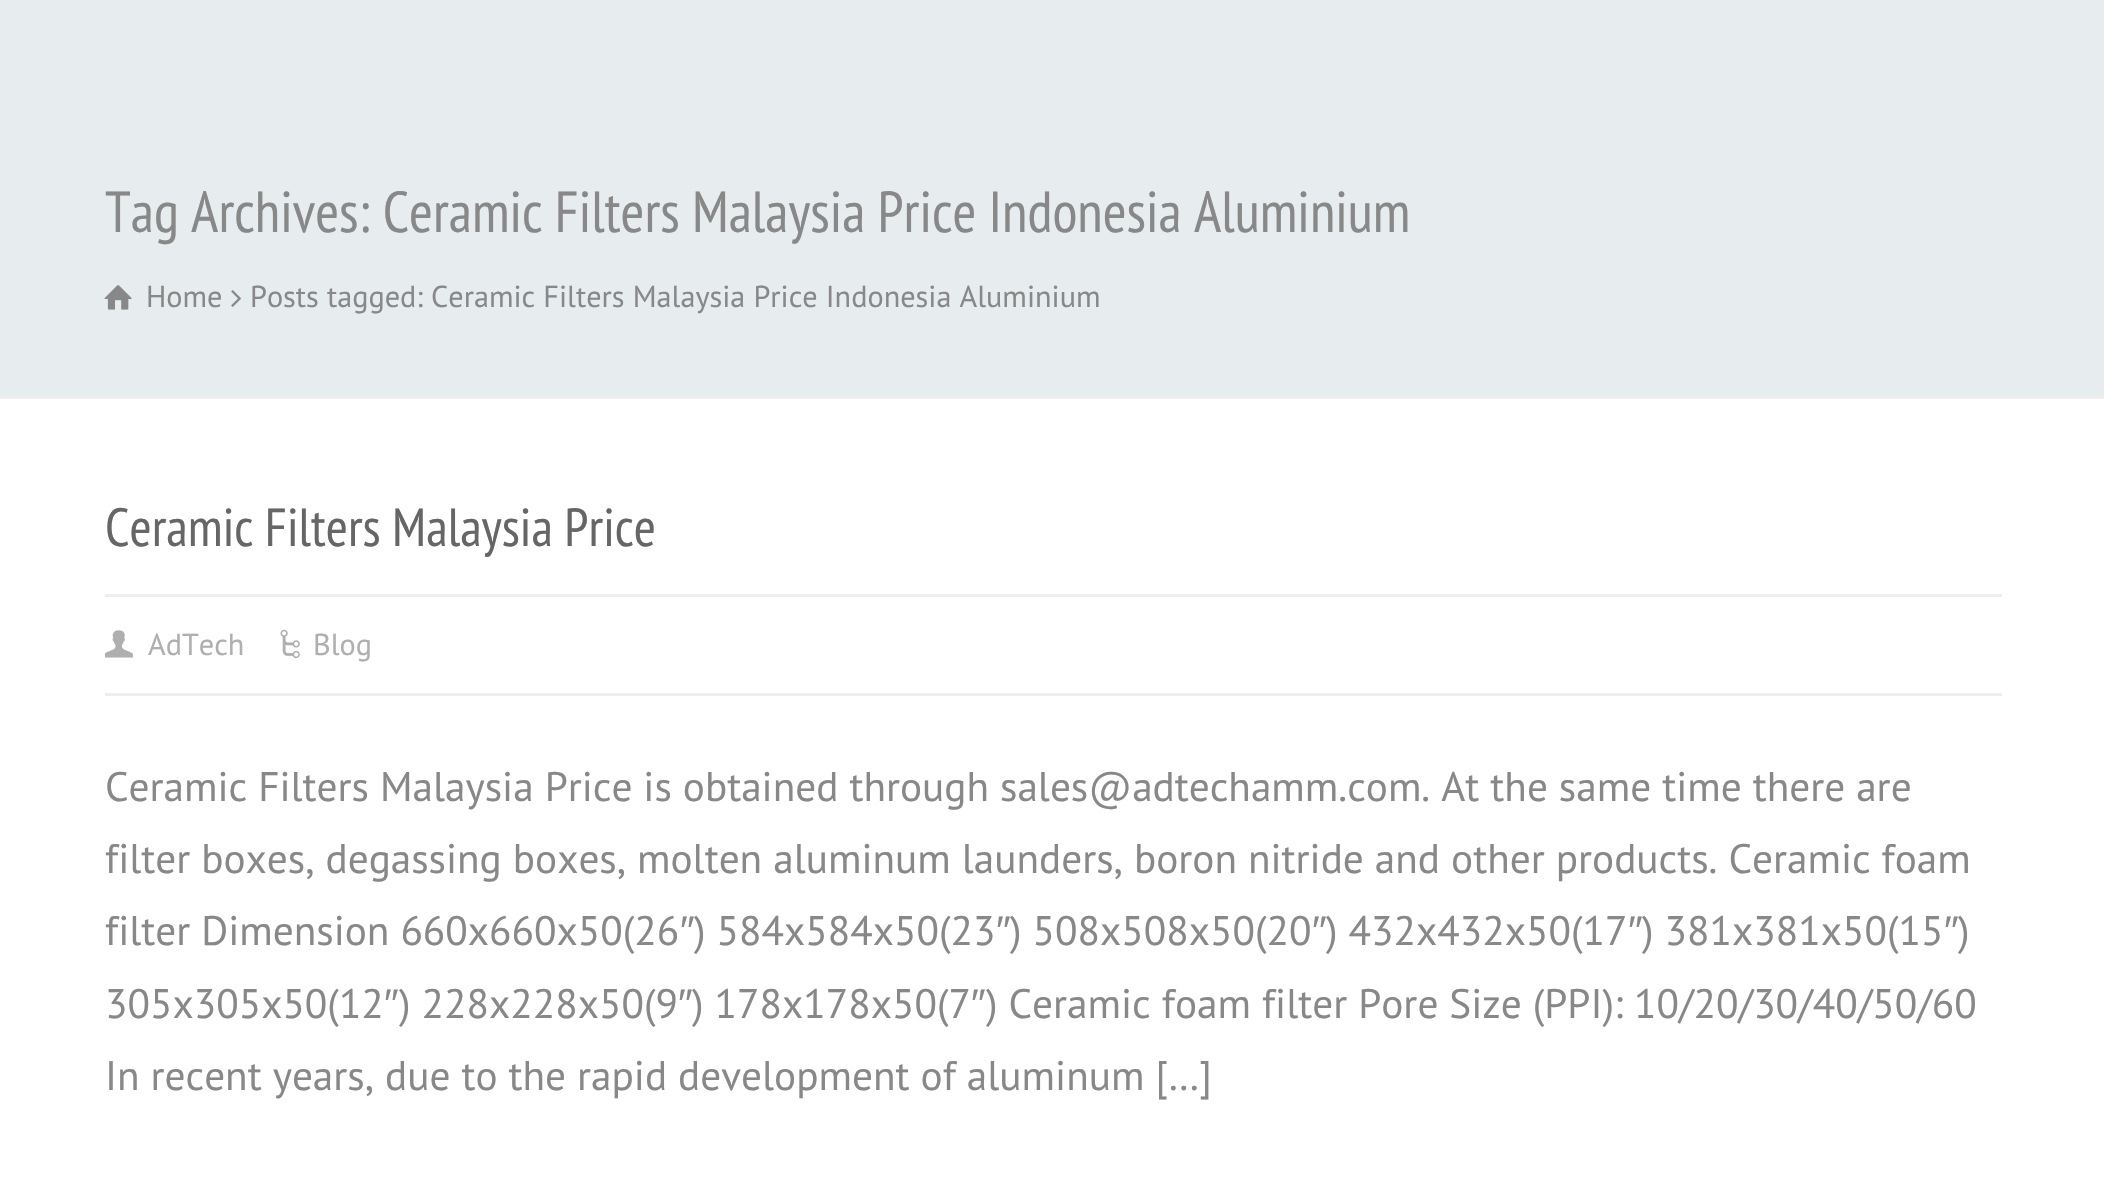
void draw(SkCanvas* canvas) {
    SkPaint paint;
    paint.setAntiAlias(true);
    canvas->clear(0xFFFFFFFF);
    paint.setColor(0xFFE7ECEF);
    canvas->drawRect(SkRect::MakeXYWH(0, 0, 2104, 396), paint);
    paint.setColor(0xFFEEEEEE);
    canvas->drawRect(SkRect::MakeXYWH(0, 396, 2104, 3), paint);
    SkFont font1(fontMgr->matchFamilyStyle("PT Sans Narrow", SkFontStyle::Normal()), 57.75f);
    font1.setSubpixel(true);
    paint.setColor(0xFF888888);
    canvas->drawString("Tag Archives: Ceramic Filters Malaysia Price Indonesia Aluminium", 105, 232, font1, paint);
    canvas->drawImageRect(SkImages::DeferredFromEncodedData(SkData::MakeFromFileName("img1.png")), SkRect::MakeXYWH(104, 285, 28, 25), SkSamplingOptions());
    SkFont font2(fontMgr->matchFamilyStyle("PT Sans", SkFontStyle::Normal()), 30.25f);
    font2.setSubpixel(true);
    canvas->drawString("Home", 146, 307, font2, paint);
    canvas->drawImageRect(SkImages::DeferredFromEncodedData(SkData::MakeFromFileName("img2.png")), SkRect::MakeXYWH(231, 290, 10, 17), SkSamplingOptions());
    canvas->drawString("Posts tagged: Ceramic Filters Malaysia Price Indonesia Aluminium", 250, 307, font2, paint);
    paint.setColor(0xFFEEEEEE);
    canvas->drawRect(SkRect::MakeXYWH(105, 693, 1897, 3), paint);
    SkFont font3(fontMgr->matchFamilyStyle("PT Sans Narrow", SkFontStyle::Normal()), 53.6f);
    font3.setSubpixel(true);
    paint.setColor(0xFF666666);
    canvas->drawString("Ceramic Filters Malaysia Price", 105, 546, font3, paint);
    paint.setColor(0xFFEEEEEE);
    canvas->drawRect(SkRect::MakeXYWH(105, 594, 1897, 3), paint);
    canvas->drawImageRect(SkImages::DeferredFromEncodedData(SkData::MakeFromFileName("img3.png")), SkRect::MakeXYWH(105, 630, 28, 28), SkSamplingOptions());
    paint.setColor(0xFFAFAFAF);
    canvas->drawString("AdTech", 148, 655, font2, paint);
    canvas->drawImageRect(SkImages::DeferredFromEncodedData(SkData::MakeFromFileName("img4.png")), SkRect::MakeXYWH(280, 629, 20, 30), SkSamplingOptions());
    canvas->drawString("Blog", 313, 655, font2, paint);
    SkFont font4(fontMgr->matchFamilyStyle("PT Sans", SkFontStyle::Normal()), 41.25f);
    font4.setSubpixel(true);
    paint.setColor(0xFF888888);
    canvas->drawString("Ceramic Filters Malaysia Price is obtained through sales@adtechamm.com. At the same time there are", 105, 801, font4, paint);
    canvas->drawString("filter boxes, degassing boxes, molten aluminum launders, boron nitride and other products. Ceramic foam", 105, 873, font4, paint);
    canvas->drawString("filter Dimension 660x660x50(26", 105, 945, font4, paint);
    SkFont font5(fontMgr->matchFamilyStyle("Liberation Sans", SkFontStyle::Normal()), 41.25f);
    font5.setSubpixel(true);
    canvas->drawString("″", 680, 945, font5, paint);
    canvas->drawString(") 584x584x50(23", 694, 945, font4, paint);
    canvas->drawString("″", 996, 945, font5, paint);
    canvas->drawString(") 508x508x50(20", 1010, 945, font4, paint);
    canvas->drawString("″", 1312, 945, font5, paint);
    canvas->drawString(") 432x432x50(17", 1326, 945, font4, paint);
    canvas->drawString("″", 1628, 945, font5, paint);
    canvas->drawString(") 381x381x50(15", 1642, 945, font4, paint);
    canvas->drawString("″", 1944, 945, font5, paint);
    canvas->drawString(")", 1958, 945, font4, paint);
    canvas->drawString("305x305x50(12", 105, 1018, font4, paint);
    canvas->drawString("″", 384, 1018, font5, paint);
    canvas->drawString(") 228x228x50(9", 399, 1018, font4, paint);
    canvas->drawString("″", 678, 1018, font5, paint);
    canvas->drawString(") 178x178x50(7", 692, 1018, font4, paint);
    canvas->drawString("″", 971, 1018, font5, paint);
    canvas->drawString(") Ceramic foam filter Pore Size (PPI): 10/20/30/40/50/60", 986, 1018, font4, paint);
    canvas->drawString("In recent years, due to the rapid development of aluminum […]", 105, 1090, font4, paint);
}
